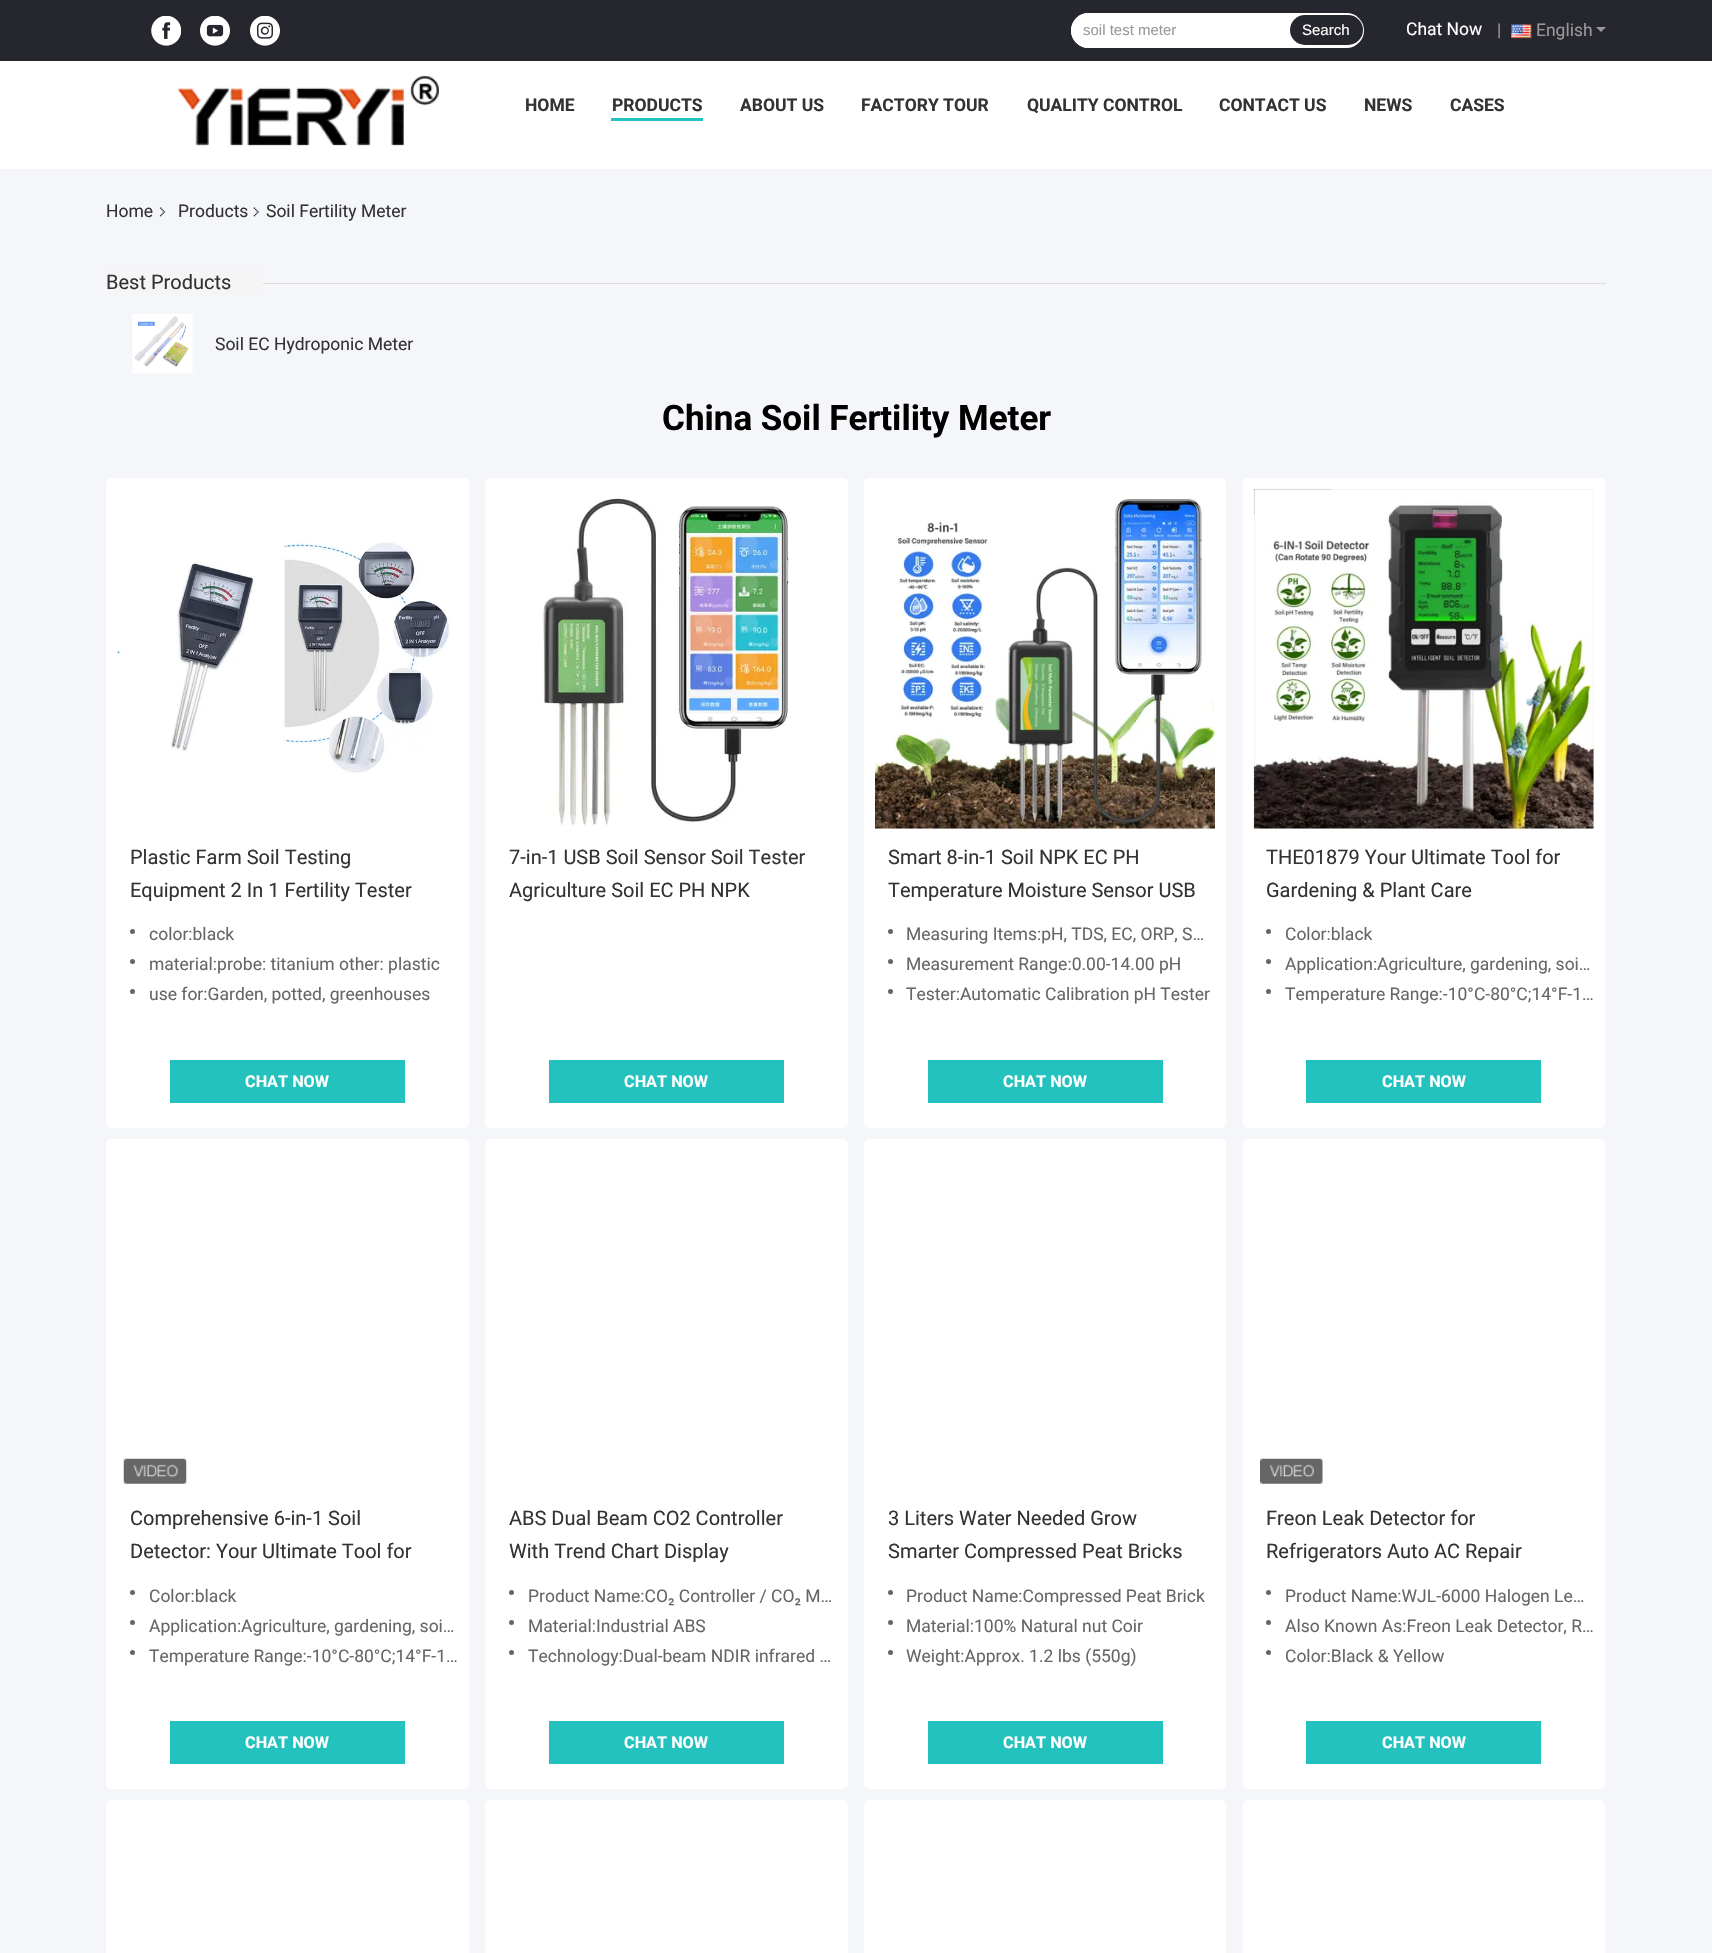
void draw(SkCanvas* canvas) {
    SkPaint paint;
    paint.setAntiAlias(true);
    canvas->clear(0xFFF4F6F9);
    paint.setColor(0xFFFFFFFF);
    canvas->drawRect(SkRect::MakeXYWH(0, 61, 1712, 108), paint);
    paint.setColor(0xFF26262E);
    canvas->drawRect(SkRect::MakeXYWH(0, 0, 1712, 61), paint);
    canvas->drawImageRect(SkImages::DeferredFromEncodedData(SkData::MakeFromFileName("img1.png")), SkRect::MakeXYWH(151, 16, 30, 30), SkSamplingOptions());
    canvas->drawImageRect(SkImages::DeferredFromEncodedData(SkData::MakeFromFileName("img2.png")), SkRect::MakeXYWH(200, 16, 30, 30), SkSamplingOptions());
    canvas->drawImageRect(SkImages::DeferredFromEncodedData(SkData::MakeFromFileName("img3.png")), SkRect::MakeXYWH(250, 16, 30, 30), SkSamplingOptions());
    paint.setColor(0xFFFFFFFF);
    canvas->drawRoundRect(SkRect::MakeXYWH(1071, 13, 293, 35), 17.5f, 17.5f, paint);
    canvas->drawPath(SkPathBuilder().moveTo(1088.5f, 13).lineTo(1290, 13).lineTo(1290, 48).lineTo(1088.5f, 48).cubicTo(1079, 48, 1071, 40, 1071, 30.5f).cubicTo(1071, 21, 1079, 13, 1088.5f, 13).close().detach(), paint);
    SkFont font1(fontMgr->matchFamilyStyle("Liberation Sans", SkFontStyle::Normal()), 15);
    font1.setSubpixel(true);
    paint.setColor(0xFF999999);
    canvas->drawString("soil test meter", 1083, 35, font1, paint);
    paint.setColor(0xFF26262E);
    canvas->drawRoundRect(SkRect::MakeXYWH(1290, 15, 73, 30), 15, 15, paint);
    paint.setColor(0xFFFFFFFF);
    canvas->drawString("Search", 1302, 35, font1, paint);
    SkFont font2(fontMgr->matchFamilyStyle("Roboto", SkFontStyle::Normal()), 17.5f);
    font2.setSubpixel(true);
    canvas->drawString("Chat Now", 1406, 35, font2, paint);
    paint.setColor(0xFF999999);
    canvas->drawString("|", 1497, 36, font2, paint);
    canvas->drawImageRect(SkImages::DeferredFromEncodedData(SkData::MakeFromFileName("img4.png")), SkRect::MakeXYWH(1511, 24, 21, 15), SkSamplingOptions());
    canvas->drawString("English", 1536, 36, font2, paint);
    canvas->drawPath(SkPathBuilder().moveTo(1596, 27).lineTo(1606, 27).lineTo(1601, 32).close().detach(), paint);
    canvas->drawImageRect(SkImages::DeferredFromEncodedData(SkData::MakeFromFileName("img5.png")), SkRect::MakeXYWH(177, 76, 262, 70), SkSamplingOptions());
    SkFont font3(fontMgr->matchFamilyStyle("Roboto", SkFontStyle::Bold()), 17.5f);
    font3.setSubpixel(true);
    paint.setColor(0xFF333333);
    canvas->drawString("HOME", 525, 111, font3, paint);
    canvas->drawString("PRODUCTS", 612, 111, font3, paint);
    paint.setColor(0xFF23C2BE);
    canvas->drawRect(SkRect::MakeXYWH(611, 118, 92, 3), paint);
    paint.setColor(0xFF333333);
    canvas->drawString("ABOUT US", 740, 111, font3, paint);
    canvas->drawString("FACTORY TOUR", 861, 111, font3, paint);
    canvas->drawString("QUALITY CONTROL", 1027, 111, font3, paint);
    canvas->drawString("CONTACT US", 1219, 111, font3, paint);
    canvas->drawString("NEWS", 1364, 111, font3, paint);
    canvas->drawString("CASES", 1450, 111, font3, paint);
    canvas->drawString("Home", 106, 217, font2, paint);
    canvas->drawImageRect(SkImages::DeferredFromEncodedData(SkData::MakeFromFileName("img6.png")), SkRect::MakeXYWH(159, 207, 7, 10), SkSamplingOptions());
    canvas->drawString("Products", 178, 217, font2, paint);
    canvas->drawImageRect(SkImages::DeferredFromEncodedData(SkData::MakeFromFileName("img7.png")), SkRect::MakeXYWH(253, 207, 6, 10), SkSamplingOptions());
    canvas->drawString("Soil Fertility Meter", 266, 217, font2, paint);
    paint.setColor(0xFFF5F5F5);
    canvas->drawRect(SkRect::MakeXYWH(106, 270, 157, 24), paint);
    SkFont font4(fontMgr->matchFamilyStyle("Roboto", SkFontStyle::Normal()), 20);
    font4.setSubpixel(true);
    paint.setColor(0xFF333333);
    canvas->drawString("Best Products", 106, 289, font4, paint);
    paint.setColor(0xFFDDDDDD);
    canvas->drawRect(SkRect::MakeXYWH(263, 283, 1343, 1), paint);
    canvas->drawImageRect(SkImages::DeferredFromEncodedData(SkData::MakeFromFileName("img8.png")), SkRect::MakeXYWH(132, 314, 61, 60), SkSamplingOptions());
    paint.setColor(0xFF333333);
    canvas->drawString("Soil EC Hydroponic Meter", 215, 350, font2, paint);
    SkFont font5(fontMgr->matchFamilyStyle("Roboto", SkFontStyle::Bold()), 35);
    font5.setSubpixel(true);
    paint.setColor(0xFF000000);
    canvas->drawString("China Soil Fertility Meter", 662, 430, font5, paint);
    paint.setColor(0xFFFFFFFF);
    canvas->drawRoundRect(SkRect::MakeXYWH(106, 478, 363, 650), 5, 5, paint);
    canvas->drawImageRect(SkImages::DeferredFromEncodedData(SkData::MakeFromFileName("img9.png")), SkRect::MakeXYWH(117, 542, 334, 232), SkSamplingOptions());
    paint.setColor(0xFF333333);
    canvas->drawString("Plastic Farm Soil Testing", 130, 864, font4, paint);
    canvas->drawString("Equipment 2 In 1 Fertility Tester", 130, 897, font4, paint);
    paint.setColor(0xFF666666);
    canvas->drawCircle(132.5f, 931.5f, 2.5f, paint);
    canvas->drawString("color:black", 149, 940, font2, paint);
    canvas->drawCircle(132.5f, 961.5f, 2.5f, paint);
    canvas->drawString("material:probe: titanium other: plastic", 149, 970, font2, paint);
    canvas->drawCircle(132.5f, 991.5f, 2.5f, paint);
    canvas->drawString("use for:Garden, potted, greenhouses", 149, 1000, font2, paint);
    paint.setColor(0xFF23C2BE);
    canvas->drawRect(SkRect::MakeXYWH(170, 1060, 235, 43), paint);
    SkFont font6(fontMgr->matchFamilyStyle("Roboto", SkFontStyle::Bold()), 16.25f);
    font6.setSubpixel(true);
    paint.setColor(0xFFFFFFFF);
    canvas->drawString("CHAT NOW", 245, 1087, font6, paint);
    canvas->drawRoundRect(SkRect::MakeXYWH(485, 478, 363, 650), 5, 5, paint);
    canvas->drawImageRect(SkImages::DeferredFromEncodedData(SkData::MakeFromFileName("img10.png")), SkRect::MakeXYWH(542, 498, 247, 328), SkSamplingOptions());
    paint.setColor(0xFF333333);
    canvas->drawString("7-in-1 USB Soil Sensor Soil Tester", 509, 864, font4, paint);
    canvas->drawString("Agriculture Soil EC PH NPK", 509, 897, font4, paint);
    paint.setColor(0xFF23C2BE);
    canvas->drawRect(SkRect::MakeXYWH(549, 1060, 235, 43), paint);
    paint.setColor(0xFFFFFFFF);
    canvas->drawString("CHAT NOW", 624, 1087, font6, paint);
    canvas->drawRoundRect(SkRect::MakeXYWH(864, 478, 362, 650), 5, 5, paint);
    canvas->drawImageRect(SkImages::DeferredFromEncodedData(SkData::MakeFromFileName("img11.png")), SkRect::MakeXYWH(875, 499, 340, 330), SkSamplingOptions());
    paint.setColor(0xFF333333);
    canvas->drawString("Smart 8-in-1 Soil NPK EC PH", 888, 864, font4, paint);
    canvas->drawString("Temperature Moisture Sensor USB", 888, 897, font4, paint);
    paint.setColor(0xFF666666);
    canvas->drawCircle(890.5f, 931.5f, 2.5f, paint);
    canvas->drawString("Measuring Items:pH, TDS, EC, ORP, S…", 906, 940, font2, paint);
    canvas->drawCircle(890.5f, 961.5f, 2.5f, paint);
    canvas->drawString("Measurement Range:0.00-14.00 pH", 906, 970, font2, paint);
    canvas->drawCircle(890.5f, 991.5f, 2.5f, paint);
    canvas->drawString("Tester:Automatic Calibration pH Tester", 906, 1000, font2, paint);
    paint.setColor(0xFF23C2BE);
    canvas->drawRect(SkRect::MakeXYWH(928, 1060, 235, 43), paint);
    paint.setColor(0xFFFFFFFF);
    canvas->drawString("CHAT NOW", 1003, 1087, font6, paint);
    canvas->drawRoundRect(SkRect::MakeXYWH(1243, 478, 362, 650), 5, 5, paint);
    canvas->drawImageRect(SkImages::DeferredFromEncodedData(SkData::MakeFromFileName("img12.png")), SkRect::MakeXYWH(1253, 488, 341, 341), SkSamplingOptions());
    paint.setColor(0xFF333333);
    canvas->drawString("THE01879 Your Ultimate Tool for", 1266, 864, font4, paint);
    canvas->drawString("Gardening & Plant Care", 1266, 897, font4, paint);
    paint.setColor(0xFF666666);
    canvas->drawCircle(1268.5f, 931.5f, 2.5f, paint);
    canvas->drawString("Color:black", 1285, 940, font2, paint);
    canvas->drawCircle(1268.5f, 961.5f, 2.5f, paint);
    canvas->drawString("Application:Agriculture, gardening, soi…", 1285, 970, font2, paint);
    canvas->drawCircle(1268.5f, 991.5f, 2.5f, paint);
    canvas->drawString("Temperature Range:-10°C-80°C;14°F-1…", 1285, 1000, font2, paint);
    paint.setColor(0xFF23C2BE);
    canvas->drawRect(SkRect::MakeXYWH(1306, 1060, 235, 43), paint);
    paint.setColor(0xFFFFFFFF);
    canvas->drawString("CHAT NOW", 1382, 1087, font6, paint);
    canvas->drawRoundRect(SkRect::MakeXYWH(106, 1139, 363, 650), 5, 5, paint);
    canvas->drawImageRect(SkImages::DeferredFromEncodedData(SkData::MakeFromFileName("img13.png")), SkRect::MakeXYWH(123, 1458, 64, 26), SkSamplingOptions());
    paint.setColor(0xFF333333);
    canvas->drawString("Comprehensive 6-in-1 Soil", 130, 1525, font4, paint);
    canvas->drawString("Detector: Your Ultimate Tool for", 130, 1558, font4, paint);
    paint.setColor(0xFF666666);
    canvas->drawCircle(132.5f, 1592.5f, 2.5f, paint);
    canvas->drawString("Color:black", 149, 1602, font2, paint);
    canvas->drawCircle(132.5f, 1622.5f, 2.5f, paint);
    canvas->drawString("Application:Agriculture, gardening, soi…", 149, 1632, font2, paint);
    canvas->drawCircle(132.5f, 1652.5f, 2.5f, paint);
    canvas->drawString("Temperature Range:-10°C-80°C;14°F-1…", 149, 1662, font2, paint);
    paint.setColor(0xFF23C2BE);
    canvas->drawRect(SkRect::MakeXYWH(170, 1721, 235, 43), paint);
    paint.setColor(0xFFFFFFFF);
    canvas->drawString("CHAT NOW", 245, 1748, font6, paint);
    canvas->drawRoundRect(SkRect::MakeXYWH(485, 1139, 363, 650), 5, 5, paint);
    paint.setColor(0xFF333333);
    canvas->drawString("ABS Dual Beam CO2 Controller", 509, 1525, font4, paint);
    canvas->drawString("With Trend Chart Display", 509, 1558, font4, paint);
    paint.setColor(0xFF666666);
    canvas->drawCircle(511.5f, 1592.5f, 2.5f, paint);
    canvas->drawString("Product Name:CO₂ Controller / CO₂ M…", 528, 1602, font2, paint);
    canvas->drawCircle(511.5f, 1622.5f, 2.5f, paint);
    canvas->drawString("Material:Industrial ABS", 528, 1632, font2, paint);
    canvas->drawCircle(511.5f, 1652.5f, 2.5f, paint);
    canvas->drawString("Technology:Dual-beam NDIR infrared …", 528, 1662, font2, paint);
    paint.setColor(0xFF23C2BE);
    canvas->drawRect(SkRect::MakeXYWH(549, 1721, 235, 43), paint);
    paint.setColor(0xFFFFFFFF);
    canvas->drawString("CHAT NOW", 624, 1748, font6, paint);
    canvas->drawRoundRect(SkRect::MakeXYWH(864, 1139, 362, 650), 5, 5, paint);
    paint.setColor(0xFF333333);
    canvas->drawString("3 Liters Water Needed Grow", 888, 1525, font4, paint);
    canvas->drawString("Smarter Compressed Peat Bricks", 888, 1558, font4, paint);
    paint.setColor(0xFF666666);
    canvas->drawCircle(890.5f, 1592.5f, 2.5f, paint);
    canvas->drawString("Product Name:Compressed Peat Brick", 906, 1602, font2, paint);
    canvas->drawCircle(890.5f, 1622.5f, 2.5f, paint);
    canvas->drawString("Material:100% Natural nut Coir", 906, 1632, font2, paint);
    canvas->drawCircle(890.5f, 1652.5f, 2.5f, paint);
    canvas->drawString("Weight:Approx. 1.2 lbs (550g)", 906, 1662, font2, paint);
    paint.setColor(0xFF23C2BE);
    canvas->drawRect(SkRect::MakeXYWH(928, 1721, 235, 43), paint);
    paint.setColor(0xFFFFFFFF);
    canvas->drawString("CHAT NOW", 1003, 1748, font6, paint);
    canvas->drawRoundRect(SkRect::MakeXYWH(1243, 1139, 362, 650), 5, 5, paint);
    canvas->drawImageRect(SkImages::DeferredFromEncodedData(SkData::MakeFromFileName("img14.png")), SkRect::MakeXYWH(1260, 1458, 63, 26), SkSamplingOptions());
    paint.setColor(0xFF333333);
    canvas->drawString("Freon Leak Detector for", 1266, 1525, font4, paint);
    canvas->drawString("Refrigerators Auto AC Repair", 1266, 1558, font4, paint);
    paint.setColor(0xFF666666);
    canvas->drawCircle(1268.5f, 1592.5f, 2.5f, paint);
    canvas->drawString("Product Name:WJL-6000 Halogen Le…", 1285, 1602, font2, paint);
    canvas->drawCircle(1268.5f, 1622.5f, 2.5f, paint);
    canvas->drawString("Also Known As:Freon Leak Detector, R…", 1285, 1632, font2, paint);
    canvas->drawCircle(1268.5f, 1652.5f, 2.5f, paint);
    canvas->drawString("Color:Black & Yellow", 1285, 1662, font2, paint);
    paint.setColor(0xFF23C2BE);
    canvas->drawRect(SkRect::MakeXYWH(1306, 1721, 235, 43), paint);
    paint.setColor(0xFFFFFFFF);
    canvas->drawString("CHAT NOW", 1382, 1748, font6, paint);
    canvas->drawRoundRect(SkRect::MakeXYWH(106, 1800, 363, 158), 5, 5, paint);
    canvas->drawRoundRect(SkRect::MakeXYWH(485, 1800, 363, 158), 5, 5, paint);
    canvas->drawRoundRect(SkRect::MakeXYWH(864, 1800, 362, 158), 5, 5, paint);
    canvas->drawRoundRect(SkRect::MakeXYWH(1243, 1800, 362, 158), 5, 5, paint);
}
